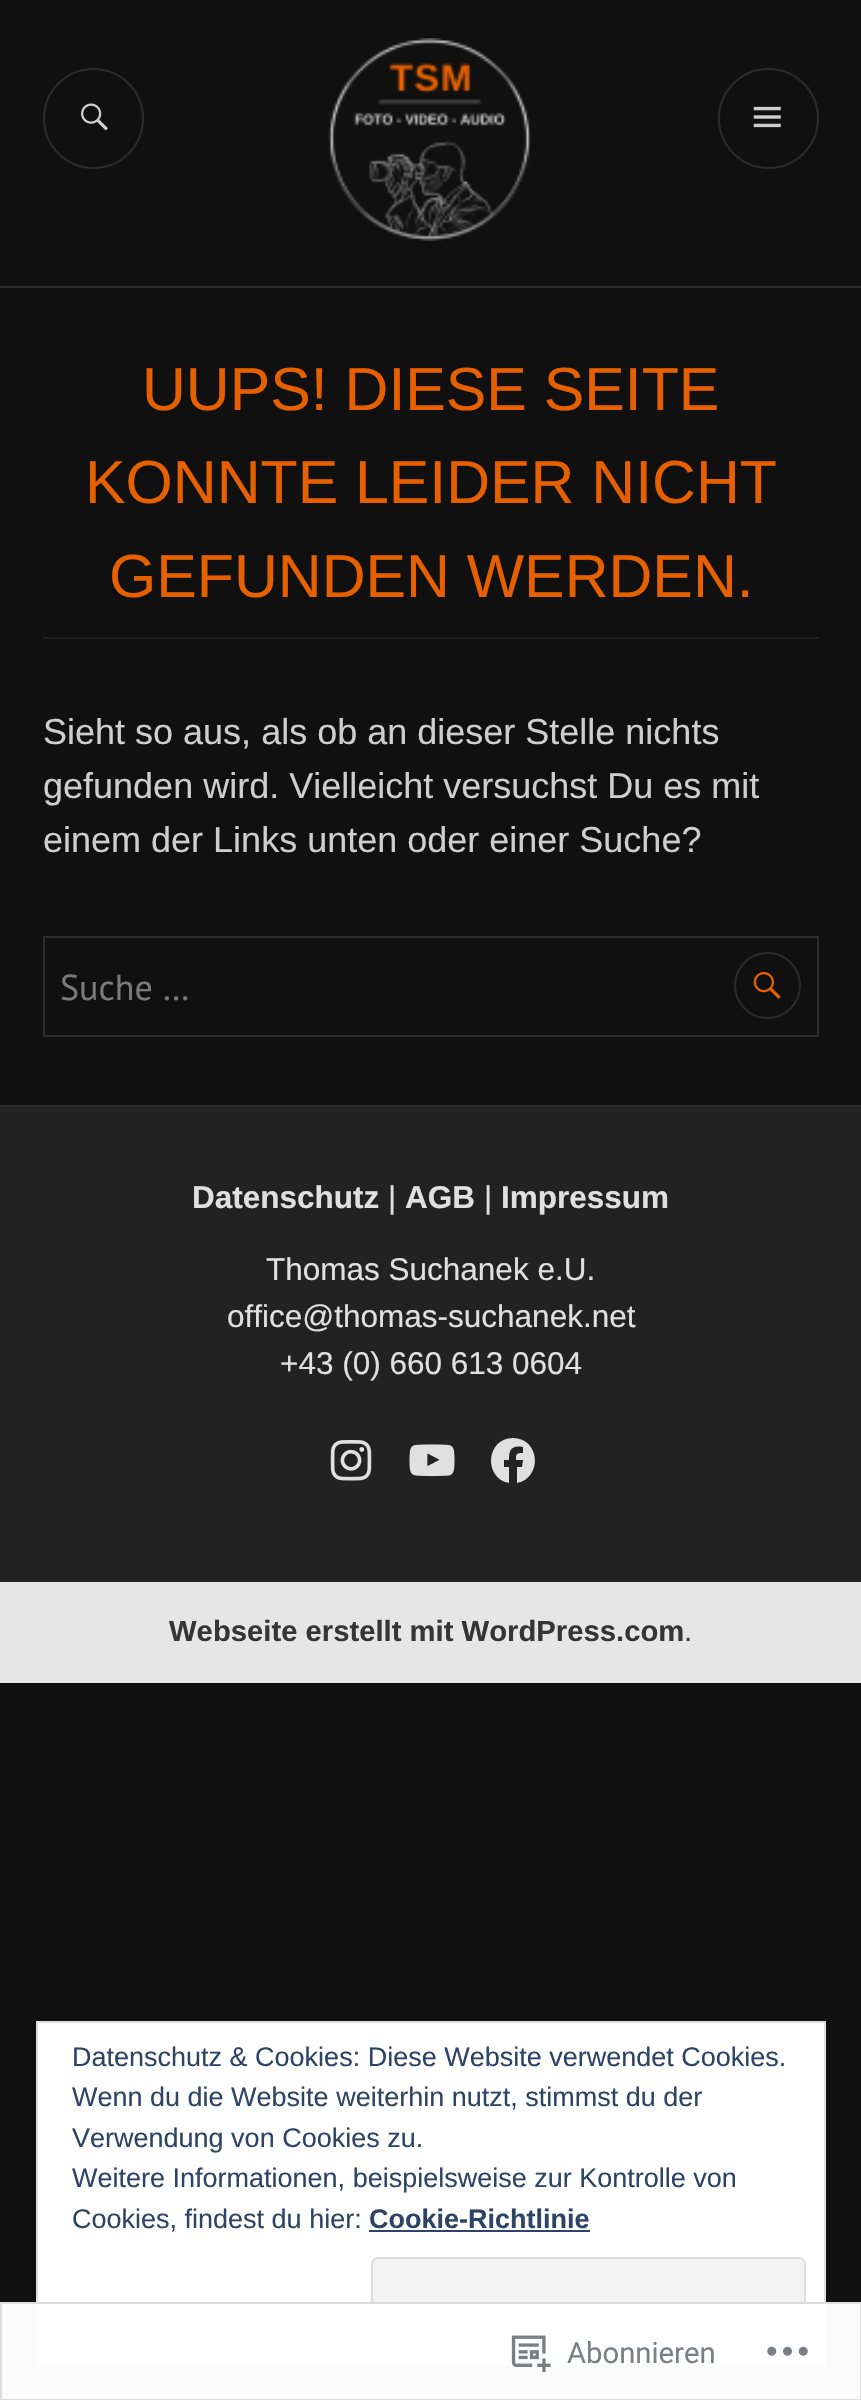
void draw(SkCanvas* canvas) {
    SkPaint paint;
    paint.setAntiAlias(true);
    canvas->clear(0xFF101010);
    paint.setColor(0xFF2B2B2B);
    canvas->drawRect(SkRect::MakeXYWH(0, 286, 861, 2), paint);
    canvas->drawImageRect(SkImages::DeferredFromEncodedData(SkData::MakeFromFileName("img1.png")), SkRect::MakeXYWH(328, 38, 203, 203), SkSamplingOptions());
    paint.setStyle(SkPaint::kStroke_Style);
    paint.setStrokeWidth(2);
    canvas->drawCircle(93.5f, 118.5f, 49.5f, paint);
    canvas->drawImageRect(SkImages::DeferredFromEncodedData(SkData::MakeFromFileName("img2.png")), SkRect::MakeXYWH(81, 103, 27, 28), SkSamplingOptions());
    canvas->drawCircle(768.5f, 118.5f, 49.5f, paint);
    canvas->drawImageRect(SkImages::DeferredFromEncodedData(SkData::MakeFromFileName("img3.png")), SkRect::MakeXYWH(753, 106, 28, 22), SkSamplingOptions());
    paint.setStyle(SkPaint::kFill_Style);
    paint.setColor(0xFF1E1E1E);
    canvas->drawRect(SkRect::MakeXYWH(43, 637, 776, 2), paint);
    SkFont font1(fontMgr->matchFamilyStyle("Liberation Sans", SkFontStyle::Normal()), 60.75f);
    font1.setSubpixel(true);
    paint.setColor(0xFFE66000);
    canvas->drawString("UUPS! DIESE SEITE", 142, 410, font1, paint);
    canvas->drawString("KONNTE LEIDER NICHT", 85, 503, font1, paint);
    canvas->drawString("GEFUNDEN WERDEN.", 109, 597, font1, paint);
    SkFont font2(fontMgr->matchFamilyStyle("Liberation Sans", SkFontStyle::Normal()), 36);
    font2.setSubpixel(true);
    paint.setColor(0xFFCECECE);
    canvas->drawString("Sieht so aus, als ob an dieser Stelle nichts", 43, 744, font2, paint);
    canvas->drawString("gefunden wird. Vielleicht versuchst Du es mit", 43, 798, font2, paint);
    canvas->drawString("einem der Links unten oder einer Suche?", 43, 852, font2, paint);
    paint.setStyle(SkPaint::kStroke_Style);
    paint.setColor(0xFF2B2B2B);
    canvas->drawRect(SkRect::MakeXYWH(44, 937, 774, 99), paint);
    canvas->drawImageRect(SkImages::DeferredFromEncodedData(SkData::MakeFromFileName("img4.png")), SkRect::MakeXYWH(753, 972, 28, 27), SkSamplingOptions());
    canvas->drawCircle(767.5f, 985.5f, 32.5f, paint);
    SkFont font3(fontMgr->matchFamilyStyle("PT Sans", SkFontStyle::Normal()), 36);
    font3.setSubpixel(true);
    paint.setStyle(SkPaint::kFill_Style);
    paint.setColor(0xFF7A7A7A);
    canvas->drawString("Suche …", 60, 1000, font3, paint);
    paint.setColor(0xFF222222);
    canvas->drawRect(SkRect::MakeXYWH(0, 1107, 861, 475), paint);
    paint.setColor(0xFF2B2B2B);
    canvas->drawRect(SkRect::MakeXYWH(0, 1105, 861, 2), paint);
    SkFont font4(fontMgr->matchFamilyStyle("Liberation Sans", SkFontStyle::Bold()), 31.5f);
    font4.setSubpixel(true);
    paint.setColor(0xFFE0E0E0);
    canvas->drawString("Datenschutz", 192, 1208, font4, paint);
    SkFont font5(fontMgr->matchFamilyStyle("Liberation Sans", SkFontStyle::Normal()), 31.5f);
    font5.setSubpixel(true);
    canvas->drawString("|", 388, 1208, font5, paint);
    canvas->drawString("AGB", 405, 1208, font4, paint);
    canvas->drawString("|", 484, 1208, font5, paint);
    canvas->drawString("Impressum", 501, 1208, font4, paint);
    canvas->drawString("Thomas Suchanek e.U.", 266, 1280, font5, paint);
    canvas->drawString("office@thomas-suchanek.net", 227, 1327, font5, paint);
    canvas->drawString("+43 (0) 660 613 0604", 280, 1374, font5, paint);
    canvas->drawImageRect(SkImages::DeferredFromEncodedData(SkData::MakeFromFileName("img5.png")), SkRect::MakeXYWH(330, 1440, 42, 41), SkSamplingOptions());
    canvas->drawImageRect(SkImages::DeferredFromEncodedData(SkData::MakeFromFileName("img6.png")), SkRect::MakeXYWH(409, 1444, 46, 33), SkSamplingOptions());
    canvas->drawPath(SkPathBuilder().moveTo(513, 1438).cubicTo(486, 1438, 483, 1478, 509, 1483).lineTo(509, 1467).lineTo(504, 1467).lineTo(504, 1460).lineTo(509, 1460).cubicTo(509, 1450, 511, 1445, 523, 1447).lineTo(523, 1453).cubicTo(516, 1453, 516, 1454, 516, 1460).lineTo(523, 1460).lineTo(522, 1467).lineTo(517, 1467).lineTo(517, 1483).cubicTo(543, 1478, 540, 1438, 513, 1438).close().detach(), paint);
    paint.setColor(0xFFE6E6E6);
    canvas->drawRect(SkRect::MakeXYWH(0, 1582, 861, 101), paint);
    SkFont font6(fontMgr->matchFamilyStyle("Liberation Sans", SkFontStyle::Bold()), 29.25f);
    font6.setSubpixel(true);
    paint.setColor(0xFF353535);
    canvas->drawString("Webseite erstellt mit WordPress.com", 169, 1641, font6, paint);
    SkFont font7(fontMgr->matchFamilyStyle("Liberation Sans", SkFontStyle::Normal()), 29.25f);
    font7.setSubpixel(true);
    canvas->drawString(".", 684, 1641, font7, paint);
    paint.setColor(0xFFFFFFFF);
    canvas->drawRect(SkRect::MakeXYWH(37, 2022, 788, 342), paint);
    paint.setStyle(SkPaint::kStroke_Style);
    paint.setColor(0xFFDEDEDE);
    canvas->drawRect(SkRect::MakeXYWH(37, 2022, 788, 342), paint);
    SkFont font8(fontMgr->matchFamilyStyle("Liberation Sans", SkFontStyle::Normal()), 27);
    font8.setSubpixel(true);
    paint.setStyle(SkPaint::kFill_Style);
    paint.setColor(0xFF2E4467);
    canvas->drawString("Datenschutz & Cookies: Diese Website verwendet Cookies.", 72, 2066, font8, paint);
    canvas->drawString("Wenn du die Website weiterhin nutzt, stimmst du der", 72, 2106, font8, paint);
    canvas->drawString("Verwendung von Cookies zu.", 72, 2147, font8, paint);
    canvas->drawString("Weitere Informationen, beispielsweise zur Kontrolle von", 72, 2187, font8, paint);
    canvas->drawString("Cookies, findest du hier:", 72, 2228, font8, paint);
    SkFont font9(fontMgr->matchFamilyStyle("Liberation Sans", SkFontStyle::Bold()), 27);
    font9.setSubpixel(true);
    canvas->drawString("Cookie-Richtlinie", 369, 2228, font9, paint);
    canvas->drawRect(SkRect::MakeXYWH(369, 2230, 221, 2), paint);
    paint.setColor(0xFFF3F3F3);
    canvas->drawRoundRect(SkRect::MakeXYWH(372, 2258, 433, 86), 6, 6, paint);
    paint.setStyle(SkPaint::kStroke_Style);
    paint.setColor(0xFFDEDEDE);
    canvas->drawRoundRect(SkRect::MakeXYWH(372, 2258, 433, 86), 6, 6, paint);
    paint.setStyle(SkPaint::kFill_Style);
    paint.setColor(0xFAFFFFFF);
    canvas->drawRect(SkRect::MakeXYWH(0, 2302, 861, 98), paint);
    paint.setStyle(SkPaint::kStroke_Style);
    paint.setColor(0xFADCDCDE);
    canvas->drawRect(SkRect::MakeXYWH(1, 2303, 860, 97), paint);
    canvas->drawImageRect(SkImages::DeferredFromEncodedData(SkData::MakeFromFileName("img7.png")), SkRect::MakeXYWH(511, 2335, 40, 38), SkSamplingOptions());
    SkFont font10(fontMgr->matchFamilyStyle("Roboto", SkFontStyle::Normal()), 29.25f);
    font10.setSubpixel(true);
    paint.setStyle(SkPaint::kFill_Style);
    paint.setColor(0xFF7B7F84);
    canvas->drawString("Abonnieren", 567, 2363, font10, paint);
    canvas->drawImageRect(SkImages::DeferredFromEncodedData(SkData::MakeFromFileName("img8.png")), SkRect::MakeXYWH(767, 2346, 41, 10), SkSamplingOptions());
}
